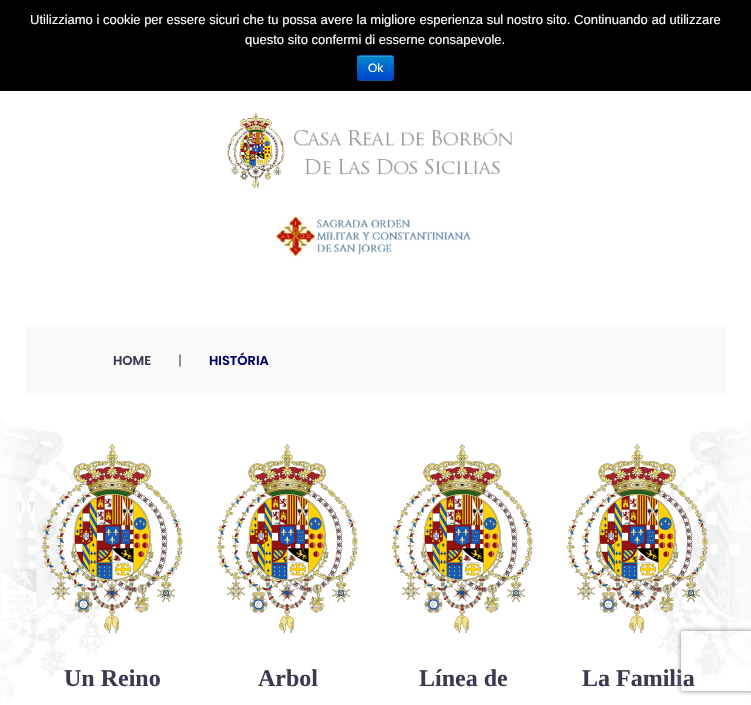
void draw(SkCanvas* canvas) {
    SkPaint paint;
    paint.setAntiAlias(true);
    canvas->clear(0xFFFFFFFF);
    canvas->drawImageRect(SkImages::DeferredFromEncodedData(SkData::MakeFromFileName("img1.png")), SkRect::MakeXYWH(0, 418, 751, 286), SkSamplingOptions());
    paint.setColor(0xFF000000);
    canvas->drawRect(SkRect::MakeXYWH(0, 0, 751, 91), paint);
    SkFont font1(fontMgr->matchFamilyStyle("Liberation Sans", SkFontStyle::Normal()), 13);
    font1.setSubpixel(true);
    paint.setColor(0xFFFFFFFF);
    canvas->drawString("Utilizziamo i cookie per essere sicuri che tu possa avere la migliore esperienza sul nostro sito. Continuando ad utilizzare", 30, 24, font1, paint);
    canvas->drawString("questo sito confermi di esserne consapevole.", 245, 44, font1, paint);
    paint.setColor(0xFF006DCC);
    canvas->drawRoundRect(SkRect::MakeXYWH(357, 55, 37, 26), 3, 3, paint);
    canvas->save();
    canvas->clipPath(SkPathBuilder().moveTo(360, 55).lineTo(391, 55).cubicTo(392.5f, 55, 394, 56.5f, 394, 58).lineTo(394, 78).cubicTo(394, 79.5f, 392.5f, 81, 391, 81).lineTo(360, 81).cubicTo(358.5f, 81, 357, 79.5f, 357, 78).lineTo(357, 58).cubicTo(357, 56.5f, 358.5f, 55, 360, 55).close().detach(), true);
    {
        const SkColor colors[] = {0xFF0088CC, 0xFF0044CC};
        const float stops[] = {0, 1};
        const SkPoint ends[] = {{376, 56}, {376, 80}};
        paint.setShader(SkGradientShader::MakeLinear(ends, colors, stops, 2, SkTileMode::kClamp));
        paint.setAlpha(255);
    }
    canvas->drawRect(SkRect::MakeXYWH(357, 56, 37, 24), paint);
    canvas->restore();
    paint.setShader(nullptr);
    paint.setColor(0x33FFFFFF);
    canvas->drawPath(SkPathBuilder().moveTo(360, 57).lineTo(391, 57).cubicTo(392, 57, 393, 58, 393, 59).cubicTo(393, 54.5f, 389.5f, 56, 386, 56).lineTo(365, 56).cubicTo(361.5f, 56, 358, 54.5f, 358, 59).cubicTo(358, 58, 359, 57, 360, 57).close().detach(), paint);
    paint.setStyle(SkPaint::kStroke_Style);
    paint.setStrokeWidth(1);
    paint.setColor(0x40000000);
    canvas->drawPath(SkPathBuilder().moveTo(393, 80).cubicTo(392.5f, 80, 391.5f, 80.5f, 391, 80.5f).lineTo(360, 80.5f).cubicTo(359.5f, 80.5f, 358.5f, 80, 358, 80).detach(), paint);
    paint.setColor(0x1A000000);
    canvas->drawPath(SkPathBuilder().moveTo(358, 80).cubicTo(358, 79.5f, 357.5f, 78.5f, 357.5f, 78).lineTo(357.5f, 58).cubicTo(357.5f, 57.5f, 358, 56.5f, 358, 56).cubicTo(358.5f, 56, 359.5f, 55.5f, 360, 55.5f).lineTo(391, 55.5f).cubicTo(391.5f, 55.5f, 392.5f, 56, 393, 56).cubicTo(393, 56.5f, 393.5f, 57.5f, 393.5f, 58).lineTo(393.5f, 78).cubicTo(393.5f, 78.5f, 393, 79.5f, 393, 80).detach(), paint);
    SkFont font2(fontMgr->matchFamilyStyle("Liberation Sans", SkFontStyle::Normal()), 12);
    font2.setSubpixel(true);
    paint.setStyle(SkPaint::kFill_Style);
    paint.setColor(0xFFFFFFFF);
    canvas->drawString("Ok", 368, 72, font2, paint);
    canvas->drawImageRect(SkImages::DeferredFromEncodedData(SkData::MakeFromFileName("img2.png")), SkRect::MakeXYWH(226, 113, 287, 75), SkSamplingOptions());
    canvas->drawImageRect(SkImages::DeferredFromEncodedData(SkData::MakeFromFileName("img3.png")), SkRect::MakeXYWH(276, 216, 196, 41), SkSamplingOptions());
    paint.setColor(0xFFF9F9FA);
    canvas->drawRect(SkRect::MakeXYWH(25, 325, 701, 70), paint);
    SkFont font3(fontMgr->matchFamilyStyle("Poppins", SkFontStyle(600, SkFontStyle::kNormal_Width, SkFontStyle::kUpright_Slant)), 13);
    font3.setSubpixel(true);
    paint.setColor(0xFF3A3A50);
    canvas->drawString("HOME", 113, 365, font3, paint);
    paint.setColor(0xFF888888);
    canvas->drawString("|", 178, 365, font3, paint);
    paint.setColor(0xFF000066);
    canvas->drawString("HISTÓRIA", 209, 365, font3, paint);
    canvas->drawImageRect(SkImages::DeferredFromEncodedData(SkData::MakeFromFileName("img4.png")), SkRect::MakeXYWH(42, 444, 141, 190), SkSamplingOptions());
    SkFont font4(fontMgr->matchFamilyStyle("Liberation Serif", SkFontStyle::Bold()), 24);
    font4.setSubpixel(true);
    paint.setColor(0xFF3A3A50);
    canvas->drawString("Un Reino", 64, 686, font4, paint);
    canvas->drawImageRect(SkImages::DeferredFromEncodedData(SkData::MakeFromFileName("img5.png")), SkRect::MakeXYWH(217, 444, 141, 190), SkSamplingOptions());
    canvas->drawString("Arbol", 258, 686, font4, paint);
    canvas->drawImageRect(SkImages::DeferredFromEncodedData(SkData::MakeFromFileName("img5.png")), SkRect::MakeXYWH(392, 444, 141, 190), SkSamplingOptions());
    canvas->drawString("Línea de", 419, 686, font4, paint);
    canvas->drawImageRect(SkImages::DeferredFromEncodedData(SkData::MakeFromFileName("img6.png")), SkRect::MakeXYWH(567, 444, 141, 190), SkSamplingOptions());
    canvas->drawString("La Familia", 582, 686, font4, paint);
    canvas->save();
    canvas->clipPath(SkPathBuilder(SkPathFillType::kEvenOdd).moveTo(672, 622).lineTo(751, 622).lineTo(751, 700).lineTo(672, 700).close().moveTo(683, 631).lineTo(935, 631).cubicTo(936, 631, 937, 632, 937, 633).lineTo(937, 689).cubicTo(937, 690, 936, 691, 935, 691).lineTo(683, 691).cubicTo(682, 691, 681, 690, 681, 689).lineTo(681, 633).cubicTo(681, 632, 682, 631, 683, 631).close().detach(), true);
    paint.setColor(0xFF808080);
    paint.setMaskFilter(SkMaskFilter::MakeBlur(kNormal_SkBlurStyle, 2.5f));
    canvas->drawRoundRect(SkRect::MakeXYWH(681, 631, 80, 60), 2, 2, paint);
    paint.setMaskFilter(nullptr);
    canvas->restore();
}
